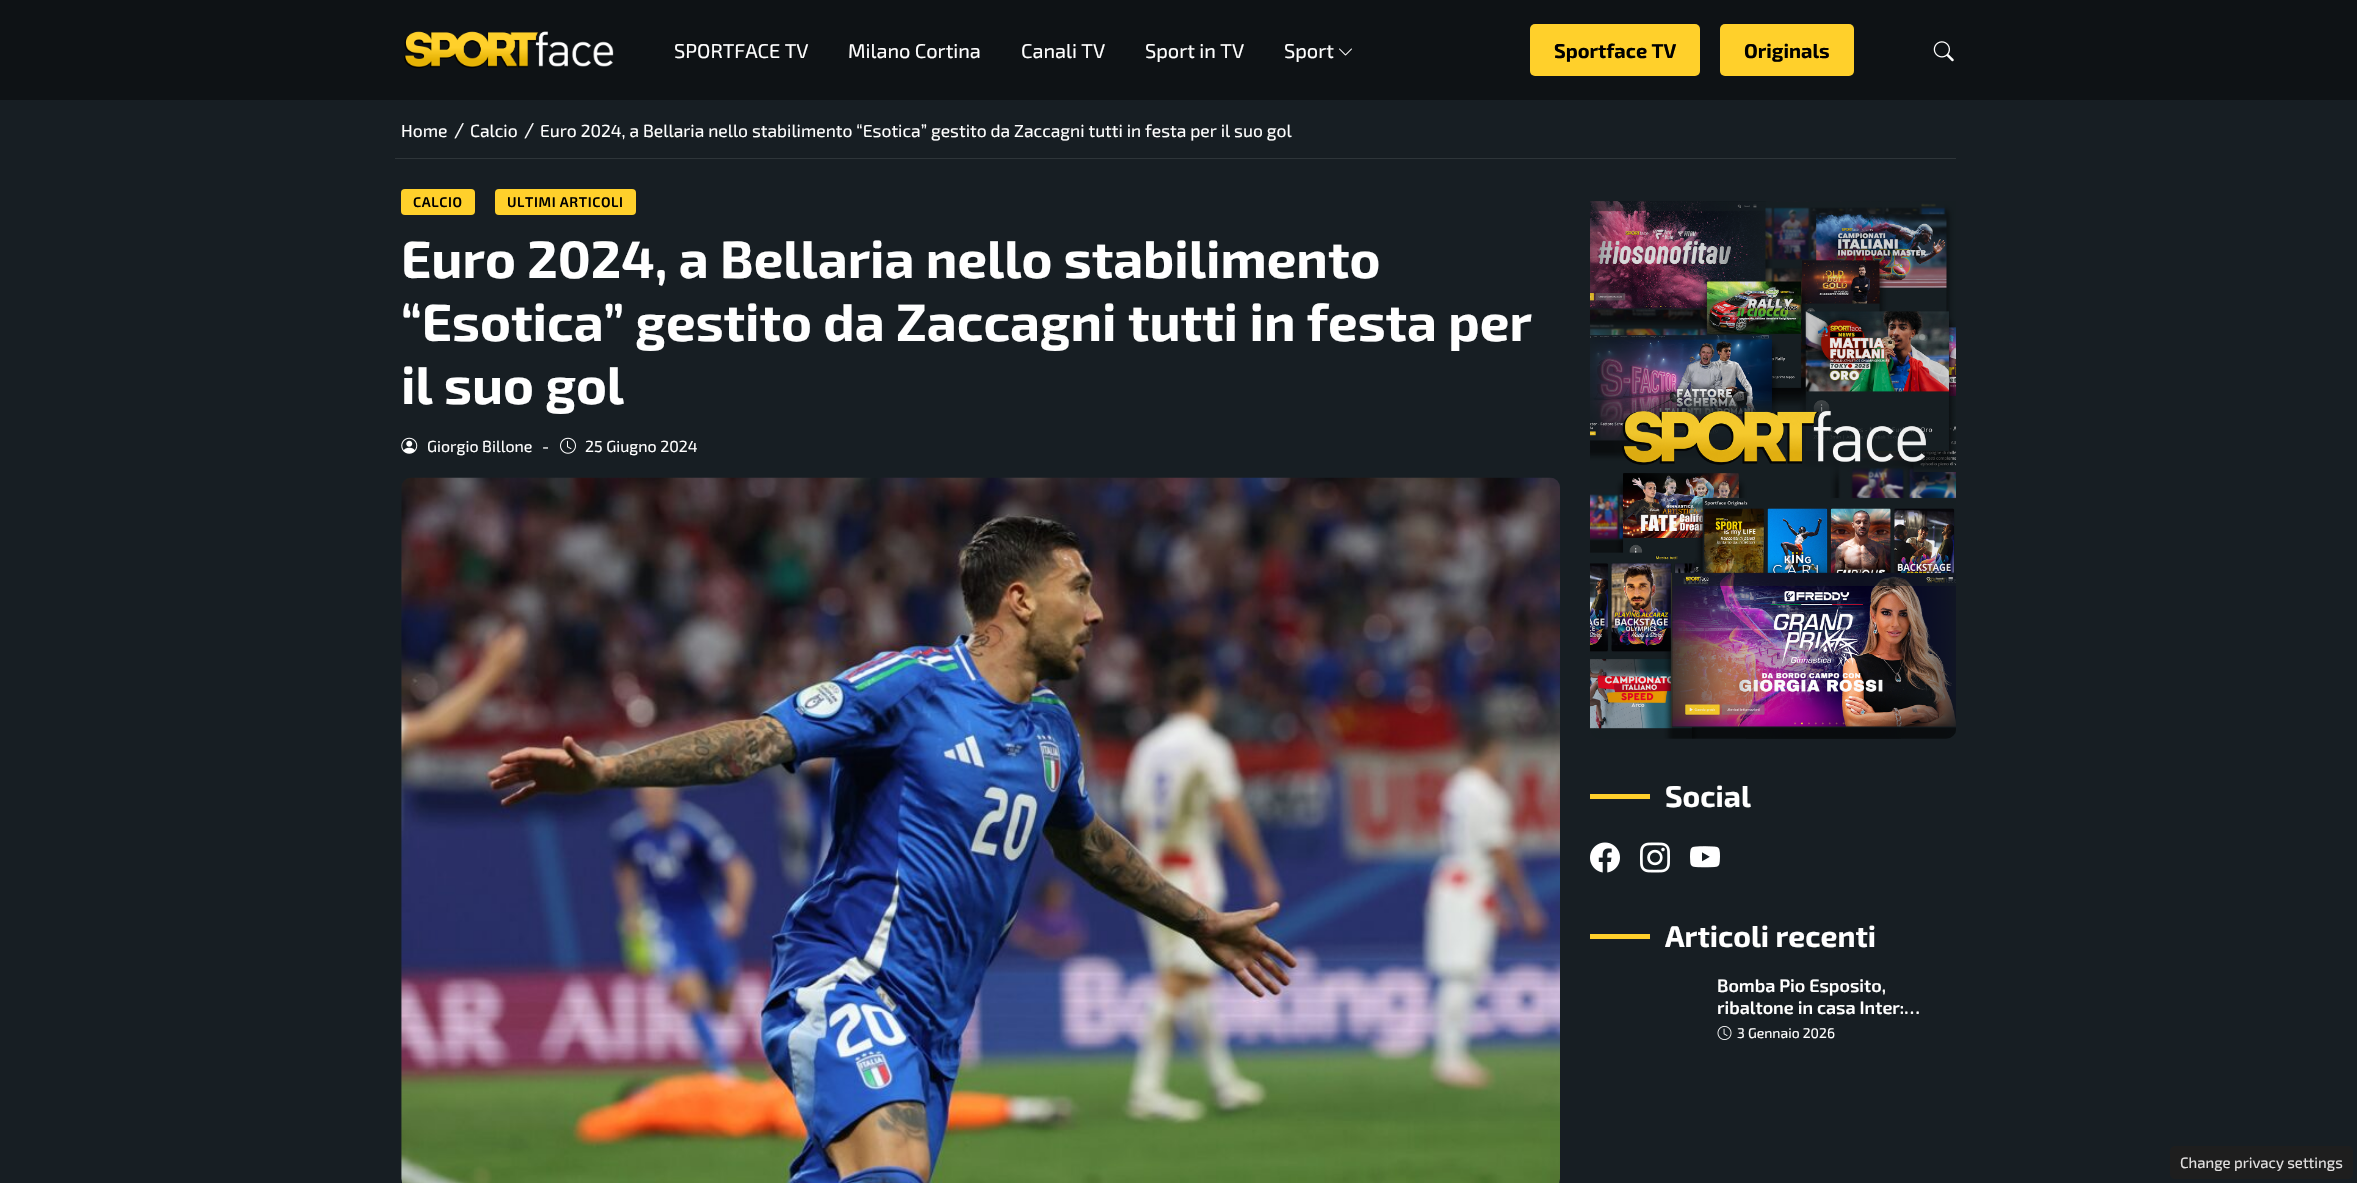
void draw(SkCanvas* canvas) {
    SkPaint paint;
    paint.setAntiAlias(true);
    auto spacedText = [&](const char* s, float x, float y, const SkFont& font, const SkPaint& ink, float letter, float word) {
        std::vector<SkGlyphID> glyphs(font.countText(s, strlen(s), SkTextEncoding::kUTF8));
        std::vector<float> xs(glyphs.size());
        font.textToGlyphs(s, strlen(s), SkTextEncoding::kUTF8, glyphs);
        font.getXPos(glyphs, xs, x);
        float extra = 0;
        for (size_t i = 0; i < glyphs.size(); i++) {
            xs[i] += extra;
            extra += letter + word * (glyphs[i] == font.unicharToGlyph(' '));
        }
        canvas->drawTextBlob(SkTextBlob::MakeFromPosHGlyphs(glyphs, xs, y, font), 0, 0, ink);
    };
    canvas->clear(0xFF171E23);
    paint.setColor(0xFF0E1215);
    canvas->drawRect(SkRect::MakeXYWH(0, 0, 2357, 100), paint);
    canvas->drawImageRect(SkImages::DeferredFromEncodedData(SkData::MakeFromFileName("img1.png")), SkRect::MakeXYWH(404, 31, 210, 38), SkSamplingOptions());
    SkFont font1(fontMgr->matchFamilyStyle("Exo 2", SkFontStyle::Normal()), 20);
    font1.setSubpixel(true);
    paint.setColor(0xFFFFFFFF);
    canvas->drawString("SPORTFACE TV", 674, 58, font1, paint);
    canvas->drawString("Milano Cortina", 848, 58, font1, paint);
    canvas->drawString("Canali TV", 1021, 58, font1, paint);
    canvas->drawString("Sport in TV", 1145, 58, font1, paint);
    canvas->drawString("Sport", 1284, 58, font1, paint);
    canvas->drawImageRect(SkImages::DeferredFromEncodedData(SkData::MakeFromFileName("img2.png")), SkRect::MakeXYWH(1339, 48, 13, 8), SkSamplingOptions());
    paint.setColor(0xFFFFD02B);
    canvas->drawRoundRect(SkRect::MakeXYWH(1530, 24, 170, 52), 5, 5, paint);
    SkFont font2(fontMgr->matchFamilyStyle("Exo 2", SkFontStyle::Bold()), 20);
    font2.setSubpixel(true);
    paint.setColor(0xFF000000);
    canvas->drawString("Sportface TV", 1554, 58, font2, paint);
    paint.setColor(0xFFFFD02B);
    canvas->drawRoundRect(SkRect::MakeXYWH(1720, 24, 134, 52), 5, 5, paint);
    paint.setColor(0xFF000000);
    canvas->drawString("Originals", 1744, 58, font2, paint);
    canvas->drawImageRect(SkImages::DeferredFromEncodedData(SkData::MakeFromFileName("img3.png")), SkRect::MakeXYWH(1933, 41, 21, 21), SkSamplingOptions());
    paint.setColor(0xFF2E3539);
    canvas->drawRect(SkRect::MakeXYWH(395, 158, 1561, 1), paint);
    SkFont font3(fontMgr->matchFamilyStyle("Exo 2", SkFontStyle::Normal()), 17.5f);
    font3.setSubpixel(true);
    paint.setColor(0xFFFFFFFF);
    canvas->drawString("Home", 401, 137, font3, paint);
    canvas->drawString("/", 454, 137, font1, paint);
    canvas->drawString("Calcio", 470, 137, font3, paint);
    canvas->drawString("/", 524, 137, font1, paint);
    canvas->drawString("Euro 2024, a Bellaria nello stabilimento “Esotica” gestito da Zaccagni tutti in festa per il suo gol", 540, 137, font3, paint);
    paint.setColor(0xFFFFD02B);
    canvas->drawRoundRect(SkRect::MakeXYWH(401, 189, 74, 26), 4, 4, paint);
    SkFont font4(fontMgr->matchFamilyStyle("Exo 2", SkFontStyle(600, SkFontStyle::kNormal_Width, SkFontStyle::kUpright_Slant)), 14);
    font4.setSubpixel(true);
    paint.setColor(0xFF000000);
    spacedText("CALCIO", 413, 207, font4, paint, 0.6f, 0);
    paint.setColor(0xFFFFD02B);
    canvas->drawRoundRect(SkRect::MakeXYWH(495, 189, 141, 26), 4, 4, paint);
    paint.setColor(0xFF000000);
    spacedText("ULTIMI ARTICOLI", 507, 207, font4, paint, 0.6f, 0);
    SkFont font5(fontMgr->matchFamilyStyle("Exo 2", SkFontStyle::Bold()), 52.5f);
    font5.setSubpixel(true);
    paint.setColor(0xFFFFFFFF);
    canvas->drawString("Euro 2024, a Bellaria nello stabilimento", 401, 278, font5, paint);
    canvas->drawString("“Esotica” gestito da Zaccagni tutti in festa per", 401, 341, font5, paint);
    canvas->drawString("il suo gol", 401, 404, font5, paint);
    canvas->drawImageRect(SkImages::DeferredFromEncodedData(SkData::MakeFromFileName("img4.png")), SkRect::MakeXYWH(401, 437, 17, 17), SkSamplingOptions());
    SkFont font6(fontMgr->matchFamilyStyle("Exo 2", SkFontStyle::Normal()), 16);
    font6.setSubpixel(true);
    canvas->drawString("Giorgio Billone", 427, 452, font6, paint);
    canvas->drawString("-", 542, 452, font6, paint);
    canvas->drawImageRect(SkImages::DeferredFromEncodedData(SkData::MakeFromFileName("img5.png")), SkRect::MakeXYWH(560, 437, 16, 17), SkSamplingOptions());
    canvas->drawString("25 Giugno 2024", 585, 452, font6, paint);
    canvas->drawImageRect(SkImages::DeferredFromEncodedData(SkData::MakeFromFileName("img6.png")), SkRect::MakeXYWH(401, 477, 1159, 706), SkSamplingOptions());
    canvas->drawImageRect(SkImages::DeferredFromEncodedData(SkData::MakeFromFileName("img7.png")), SkRect::MakeXYWH(1590, 201, 366, 538), SkSamplingOptions());
    paint.setColor(0xFFFFD02B);
    canvas->drawRect(SkRect::MakeXYWH(1590, 794, 60, 5), paint);
    SkFont font7(fontMgr->matchFamilyStyle("Exo 2", SkFontStyle::Bold()), 30);
    font7.setSubpixel(true);
    paint.setColor(0xFFFFFFFF);
    canvas->drawString("Social", 1665, 807, font7, paint);
    canvas->drawImageRect(SkImages::DeferredFromEncodedData(SkData::MakeFromFileName("img8.png")), SkRect::MakeXYWH(1590, 842, 30, 31), SkSamplingOptions());
    canvas->drawImageRect(SkImages::DeferredFromEncodedData(SkData::MakeFromFileName("img9.png")), SkRect::MakeXYWH(1640, 842, 30, 31), SkSamplingOptions());
    canvas->drawImageRect(SkImages::DeferredFromEncodedData(SkData::MakeFromFileName("img10.png")), SkRect::MakeXYWH(1690, 846, 30, 22), SkSamplingOptions());
    paint.setColor(0xFFFFD02B);
    canvas->drawRect(SkRect::MakeXYWH(1590, 934, 60, 5), paint);
    paint.setColor(0xFFFFFFFF);
    canvas->drawString("Articoli recenti", 1665, 947, font7, paint);
    SkFont font8(fontMgr->matchFamilyStyle("Exo 2", SkFontStyle(600, SkFontStyle::kNormal_Width, SkFontStyle::kUpright_Slant)), 18);
    font8.setSubpixel(true);
    canvas->drawString("Bomba Pio Esposito,", 1717, 992, font8, paint);
    canvas->drawString("ribaltone in casa Inter:…", 1717, 1014, font8, paint);
    canvas->drawImageRect(SkImages::DeferredFromEncodedData(SkData::MakeFromFileName("img11.png")), SkRect::MakeXYWH(1717, 1026, 15, 14), SkSamplingOptions());
    SkFont font9(fontMgr->matchFamilyStyle("Exo 2", SkFontStyle::Normal()), 14);
    font9.setSubpixel(true);
    canvas->drawString("3 Gennaio 2026", 1737, 1038, font9, paint);
    paint.setColor(0xFF1E1E1E);
    canvas->drawRoundRect(SkRect::MakeXYWH(2170, 1146, 183, 33), 5, 5, paint);
    SkFont font10(fontMgr->matchFamilyStyle("Exo 2", SkFontStyle::Normal()), 15);
    font10.setSubpixel(true);
    paint.setColor(0xFFE3E1E1);
    canvas->drawString("Change privacy settings", 2180, 1168, font10, paint);
}
